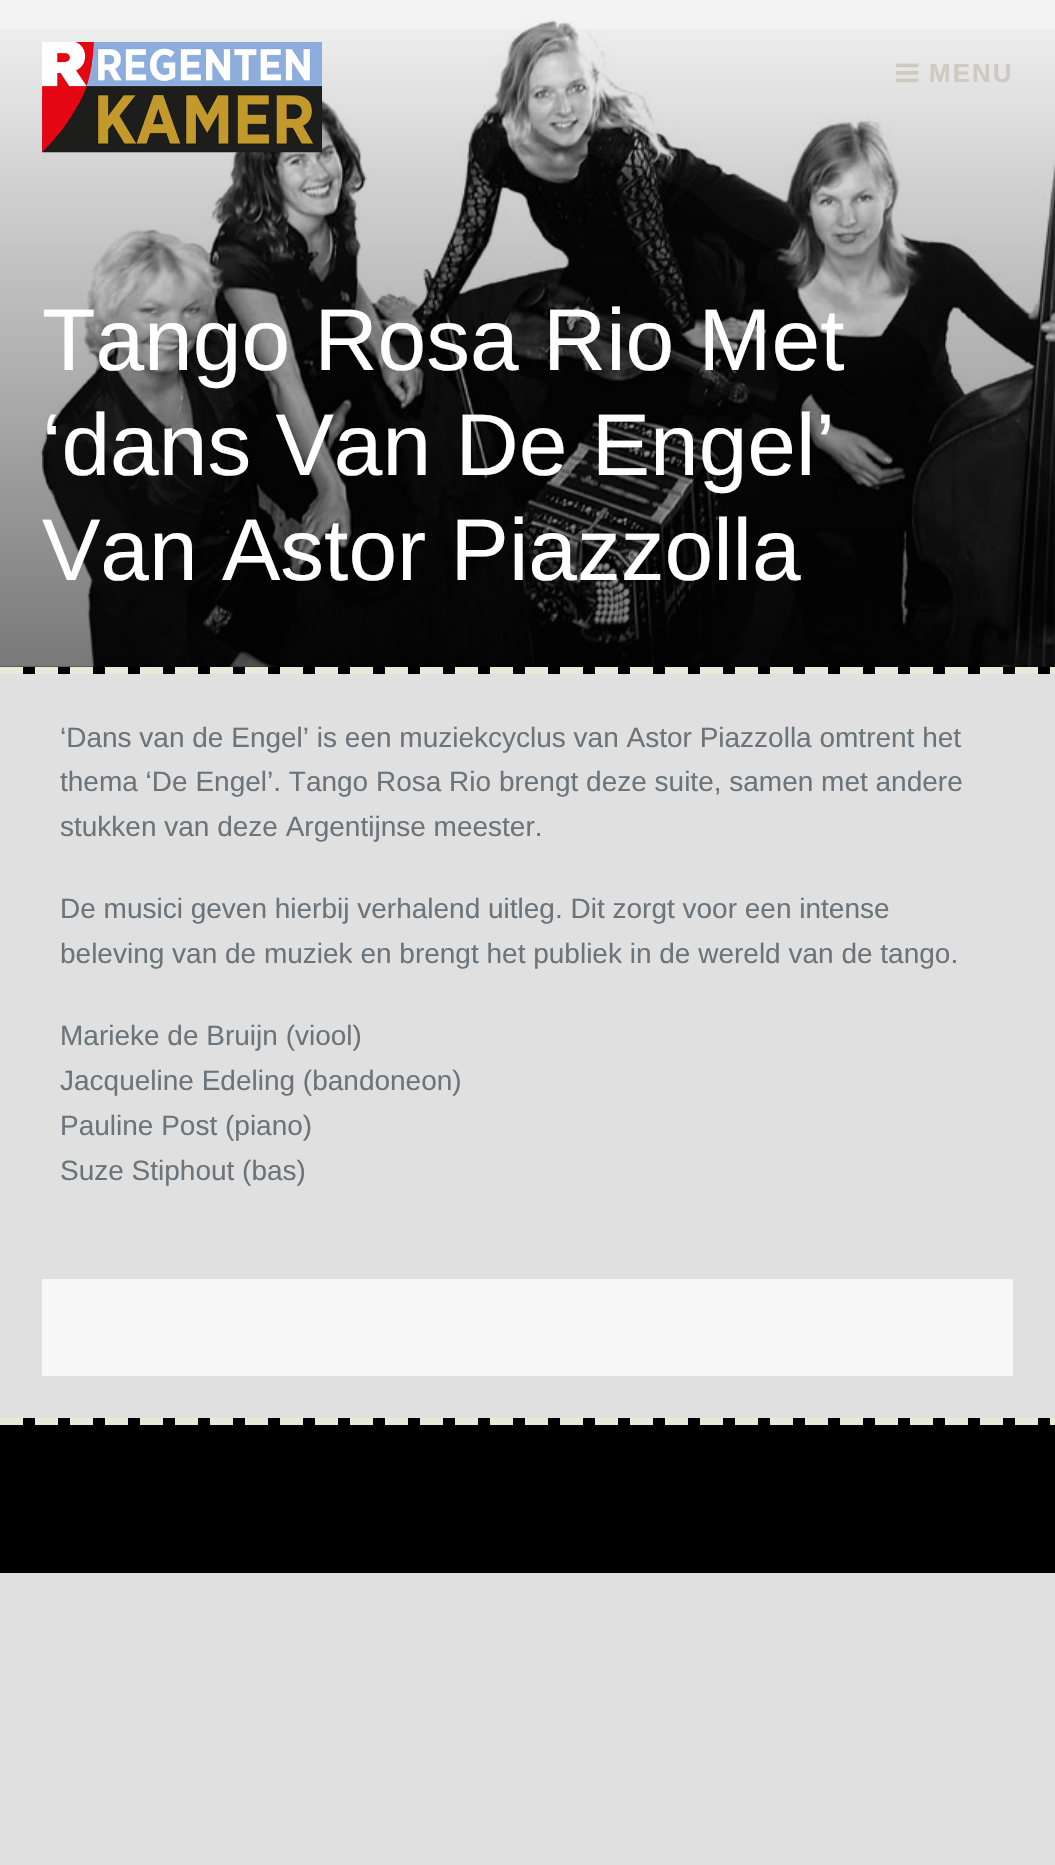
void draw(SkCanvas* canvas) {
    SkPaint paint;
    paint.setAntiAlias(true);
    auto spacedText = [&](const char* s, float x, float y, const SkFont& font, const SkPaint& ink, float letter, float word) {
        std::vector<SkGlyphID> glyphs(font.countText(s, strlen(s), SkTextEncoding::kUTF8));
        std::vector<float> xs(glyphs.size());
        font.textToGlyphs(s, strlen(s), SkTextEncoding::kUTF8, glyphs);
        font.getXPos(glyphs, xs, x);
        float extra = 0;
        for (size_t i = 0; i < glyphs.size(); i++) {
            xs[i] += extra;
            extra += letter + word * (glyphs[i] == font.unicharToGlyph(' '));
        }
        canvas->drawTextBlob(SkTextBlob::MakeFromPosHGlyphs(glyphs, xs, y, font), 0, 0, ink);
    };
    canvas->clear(0xFFE0E0E0);
    paint.setColor(0xFF000000);
    canvas->drawRect(SkRect::MakeXYWH(0, 0, 1055, 674), paint);
    canvas->drawImageRect(SkImages::DeferredFromEncodedData(SkData::MakeFromFileName("img1.png")), SkRect::MakeXYWH(0, 0, 1055, 667), SkSamplingOptions());
    {
        const SkColor colors[] = {0x00000000, 0x80000000};
        const float stops[] = {0, 1};
        const SkPoint ends[] = {{528, 0}, {528, 667}};
        paint.setShader(SkGradientShader::MakeLinear(ends, colors, stops, 2, SkTileMode::kClamp));
        paint.setAlpha(255);
    }
    canvas->drawRect(SkRect::MakeXYWH(0, 29, 1055, 638), paint);
    canvas->drawImageRect(SkImages::DeferredFromEncodedData(SkData::MakeFromFileName("img2.png")), SkRect::MakeXYWH(42, 42, 280, 111), SkSamplingOptions());
    canvas->drawImageRect(SkImages::DeferredFromEncodedData(SkData::MakeFromFileName("img3.png")), SkRect::MakeXYWH(896, 63, 23, 20), SkSamplingOptions());
    SkFont font1(fontMgr->matchFamilyStyle("Liberation Sans", SkFontStyle::Bold()), 26);
    font1.setSubpixel(true);
    paint.setShader(nullptr);
    paint.setColor(0xFFCBCBBF);
    spacedText("MENU", 929, 82, font1, paint, 2, 0);
    SkFont font2(fontMgr->matchFamilyStyle("Liberation Sans", SkFontStyle::Normal()), 87.5f);
    font2.setSubpixel(true);
    paint.setColor(0xFFFFFFFF);
    canvas->drawString("Tango Rosa Rio Met", 42, 370, font2, paint);
    canvas->drawString("‘dans Van De Engel’", 42, 475, font2, paint);
    canvas->drawString("Van Astor Piazzolla", 42, 580, font2, paint);
    canvas->drawImageRect(SkImages::DeferredFromEncodedData(SkData::MakeFromFileName("img4.png")), SkRect::MakeXYWH(0, 667, 1055, 7), SkSamplingOptions());
    SkFont font3(fontMgr->matchFamilyStyle("Liberation Sans", SkFontStyle::Normal()), 28);
    font3.setSubpixel(true);
    paint.setColor(0xFF6B747A);
    canvas->drawString("‘Dans van de Engel’ is een muziekcyclus van Astor Piazzolla omtrent het", 60, 747, font3, paint);
    canvas->drawString("thema ‘De Engel’. Tango Rosa Rio brengt deze suite, samen met andere", 60, 791, font3, paint);
    canvas->drawString("stukken van deze Argentijnse meester.", 60, 836, font3, paint);
    canvas->drawString("De musici geven hierbij verhalend uitleg. Dit zorgt voor een intense", 60, 918, font3, paint);
    canvas->drawString("beleving van de muziek en brengt het publiek in de wereld van de tango.", 60, 963, font3, paint);
    canvas->drawString("Marieke de Bruijn (viool)", 60, 1045, font3, paint);
    canvas->drawString("Jacqueline Edeling (bandoneon)", 60, 1090, font3, paint);
    canvas->drawString("Pauline Post (piano)", 60, 1135, font3, paint);
    canvas->drawString("Suze Stiphout (bas)", 60, 1180, font3, paint);
    paint.setColor(0xFFF7F7F7);
    canvas->drawRect(SkRect::MakeXYWH(42, 1279, 971, 97), paint);
    paint.setColor(0xFF000000);
    canvas->drawRect(SkRect::MakeXYWH(0, 1418, 1055, 155), paint);
    canvas->drawImageRect(SkImages::DeferredFromEncodedData(SkData::MakeFromFileName("img4.png")), SkRect::MakeXYWH(0, 1418, 1055, 7), SkSamplingOptions());
}
